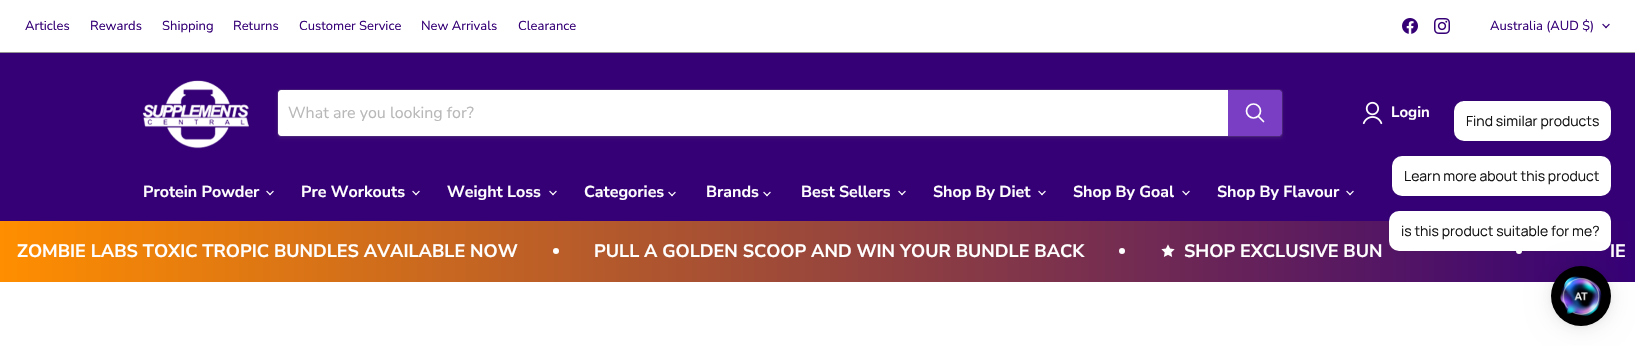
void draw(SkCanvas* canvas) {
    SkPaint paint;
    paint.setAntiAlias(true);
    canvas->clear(0xFFFFFFFF);
    paint.setColor(0xFF949494);
    canvas->drawRect(SkRect::MakeXYWH(0, 52, 1635, 1), paint);
    SkFont font1(fontMgr->matchFamilyStyle("Nunito Sans", SkFontStyle::Normal()), 13);
    font1.setSubpixel(true);
    paint.setColor(0xFF350076);
    canvas->drawString("Articles", 25, 30, font1, paint);
    canvas->drawString("Rewards", 90, 30, font1, paint);
    canvas->drawString("Shipping", 162, 30, font1, paint);
    canvas->drawString("Returns", 233, 30, font1, paint);
    canvas->drawString("Customer Service", 299, 30, font1, paint);
    canvas->drawString("New Arrivals", 421, 30, font1, paint);
    canvas->drawString("Clearance", 518, 30, font1, paint);
    canvas->drawImageRect(SkImages::DeferredFromEncodedData(SkData::MakeFromFileName("img1.png")), SkRect::MakeXYWH(1402, 18, 16, 16), SkSamplingOptions());
    canvas->drawImageRect(SkImages::DeferredFromEncodedData(SkData::MakeFromFileName("img2.png")), SkRect::MakeXYWH(1434, 18, 16, 16), SkSamplingOptions());
    canvas->drawString("Australia (AUD $)", 1490, 30, font1, paint);
    canvas->drawImageRect(SkImages::DeferredFromEncodedData(SkData::MakeFromFileName("img3.png")), SkRect::MakeXYWH(1602, 23, 8, 6), SkSamplingOptions());
    canvas->drawRect(SkRect::MakeXYWH(0, 53, 1635, 168), paint);
    canvas->drawImageRect(SkImages::DeferredFromEncodedData(SkData::MakeFromFileName("img4.png")), SkRect::MakeXYWH(142, 80, 107, 69), SkSamplingOptions());
    paint.setColor(0x1C808080);
    paint.setMaskFilter(SkMaskFilter::MakeBlur(kNormal_SkBlurStyle, 1.5f));
    canvas->drawRoundRect(SkRect::MakeXYWH(277, 91, 1006, 48), 4, 4, paint);
    paint.setMaskFilter(nullptr);
    paint.setStyle(SkPaint::kStroke_Style);
    paint.setStrokeWidth(1);
    paint.setColor(0x33808080);
    canvas->drawRoundRect(SkRect::MakeXYWH(277.5f, 89.5f, 1005, 47), 3.5f, 3.5f, paint);
    paint.setStyle(SkPaint::kFill_Style);
    paint.setColor(0xFFFFFFFF);
    canvas->drawPath(SkPathBuilder().moveTo(281, 90).lineTo(1228, 90).lineTo(1228, 136).lineTo(281, 136).cubicTo(279.5f, 136, 278, 134.5f, 278, 133).lineTo(278, 93).cubicTo(278, 91.5f, 279.5f, 90, 281, 90).close().detach(), paint);
    SkFont font2(fontMgr->matchFamilyStyle("Nunito Sans", SkFontStyle::Normal()), 16);
    font2.setSubpixel(true);
    paint.setColor(0xFFB8B8B8);
    canvas->drawString("What are you looking for?", 288, 118, font2, paint);
    paint.setColor(0xFF7A3EC4);
    canvas->drawPath(SkPathBuilder().moveTo(1228.5f, 90.5f).lineTo(1279, 90.5f).cubicTo(1280.5f, 90.5f, 1281.5f, 91.5f, 1281.5f, 93).lineTo(1281.5f, 133).cubicTo(1281.5f, 134.5f, 1280.5f, 135.5f, 1279, 135.5f).lineTo(1228.5f, 135.5f).close().detach(), paint);
    paint.setStyle(SkPaint::kStroke_Style);
    canvas->drawPath(SkPathBuilder().moveTo(1228.5f, 90.5f).lineTo(1279, 90.5f).cubicTo(1280.5f, 90.5f, 1281.5f, 91.5f, 1281.5f, 93).lineTo(1281.5f, 133).cubicTo(1281.5f, 134.5f, 1280.5f, 135.5f, 1279, 135.5f).lineTo(1228.5f, 135.5f).close().detach(), paint);
    paint.setStrokeWidth(1.7f);
    paint.setStrokeCap(SkPaint::kRound_Cap);
    paint.setColor(0xFFFFFFFF);
    canvas->drawPath(SkPathBuilder().moveTo(1263.5f, 121.5f).lineTo(1258.5f, 116.5f).detach(), paint);
    paint.setStrokeCap(SkPaint::kButt_Cap);
    canvas->drawCircle(1253.5f, 111, 7, paint);
    canvas->drawImageRect(SkImages::DeferredFromEncodedData(SkData::MakeFromFileName("img5.png")), SkRect::MakeXYWH(1463, 101, 1, 1), SkSamplingOptions());
    canvas->drawImageRect(SkImages::DeferredFromEncodedData(SkData::MakeFromFileName("img6.png")), SkRect::MakeXYWH(1362, 101, 21, 24), SkSamplingOptions());
    SkFont font3(fontMgr->matchFamilyStyle("Nunito Sans", SkFontStyle::Bold()), 15);
    font3.setSubpixel(true);
    paint.setStyle(SkPaint::kFill_Style);
    canvas->drawString("Login", 1391, 117, font3, paint);
    SkFont font4(fontMgr->matchFamilyStyle("Nunito Sans", SkFontStyle::Bold()), 16);
    font4.setSubpixel(true);
    canvas->drawString("Protein Powder", 143, 197, font4, paint);
    canvas->drawImageRect(SkImages::DeferredFromEncodedData(SkData::MakeFromFileName("img7.png")), SkRect::MakeXYWH(266, 190, 8, 6), SkSamplingOptions());
    canvas->drawString("Pre Workouts", 301, 197, font4, paint);
    canvas->drawImageRect(SkImages::DeferredFromEncodedData(SkData::MakeFromFileName("img7.png")), SkRect::MakeXYWH(412, 190, 8, 6), SkSamplingOptions());
    canvas->drawString("Weight Loss", 447, 197, font4, paint);
    canvas->drawImageRect(SkImages::DeferredFromEncodedData(SkData::MakeFromFileName("img7.png")), SkRect::MakeXYWH(549, 190, 8, 6), SkSamplingOptions());
    canvas->drawString("Categories", 584, 197, font4, paint);
    canvas->drawImageRect(SkImages::DeferredFromEncodedData(SkData::MakeFromFileName("img7.png")), SkRect::MakeXYWH(668, 191, 8, 6), SkSamplingOptions());
    canvas->drawString("Brands", 706, 197, font4, paint);
    canvas->drawImageRect(SkImages::DeferredFromEncodedData(SkData::MakeFromFileName("img7.png")), SkRect::MakeXYWH(763, 191, 8, 6), SkSamplingOptions());
    canvas->drawString("Best Sellers", 801, 197, font4, paint);
    canvas->drawImageRect(SkImages::DeferredFromEncodedData(SkData::MakeFromFileName("img7.png")), SkRect::MakeXYWH(898, 190, 8, 6), SkSamplingOptions());
    canvas->drawString("Shop By Diet", 933, 197, font4, paint);
    canvas->drawImageRect(SkImages::DeferredFromEncodedData(SkData::MakeFromFileName("img7.png")), SkRect::MakeXYWH(1038, 190, 8, 6), SkSamplingOptions());
    canvas->drawString("Shop By Goal", 1073, 197, font4, paint);
    canvas->drawImageRect(SkImages::DeferredFromEncodedData(SkData::MakeFromFileName("img7.png")), SkRect::MakeXYWH(1182, 190, 8, 6), SkSamplingOptions());
    canvas->drawString("Shop By Flavour", 1217, 197, font4, paint);
    canvas->drawImageRect(SkImages::DeferredFromEncodedData(SkData::MakeFromFileName("img7.png")), SkRect::MakeXYWH(1346, 190, 8, 6), SkSamplingOptions());
    paint.setStyle(SkPaint::kStroke_Style);
    paint.setStrokeWidth(1);
    paint.setColor(0xFF330172);
    canvas->drawRoundRect(SkRect::MakeXYWH(1453.5f, 100.5f, 158, 41), 10.5f, 10.5f, paint);
    paint.setStyle(SkPaint::kFill_Style);
    paint.setColor(0xFFFFFFFF);
    canvas->drawRoundRect(SkRect::MakeXYWH(1454, 101, 157, 40), 10, 10, paint);
    SkFont font5(fontMgr->matchFamilyStyle("Manrope", SkFontStyle::Normal()), 14);
    font5.setSubpixel(true);
    paint.setColor(0xFF121212);
    canvas->drawString("Find similar products", 1466, 126, font5, paint);
    paint.setStyle(SkPaint::kStroke_Style);
    paint.setColor(0xFF330172);
    canvas->drawRoundRect(SkRect::MakeXYWH(1391.5f, 155.5f, 220, 41), 10.5f, 10.5f, paint);
    paint.setStyle(SkPaint::kFill_Style);
    paint.setColor(0xFFFFFFFF);
    canvas->drawRoundRect(SkRect::MakeXYWH(1392, 156, 219, 40), 10, 10, paint);
    paint.setColor(0xFF121212);
    canvas->drawString("Learn more about this product", 1404, 181, font5, paint);
    {
        const SkColor colors[] = {0xFFFF8E00, 0xFF350076};
        const float stops[] = {0, 1};
        const SkPoint ends[] = {{0, 252}, {1635, 251}};
        paint.setShader(SkGradientShader::MakeLinear(ends, colors, stops, 2, SkTileMode::kClamp));
        paint.setAlpha(255);
    }
    canvas->drawRect(SkRect::MakeXYWH(0, 221, 1635, 61), paint);
    paint.setShader(nullptr);
    paint.setColor(0xFFFFFFFF);
    canvas->drawCircle(1519, 251, 3, paint);
    SkFont font6(fontMgr->matchFamilyStyle("Nunito Sans", SkFontStyle::Bold()), 18);
    font6.setSubpixel(true);
    canvas->drawString("IE", 1610, 257, font6, paint);
    paint.setStyle(SkPaint::kStroke_Style);
    paint.setColor(0x0A161A1E);
    canvas->drawRect(SkRect::MakeXYWH(1388.5f, 210.5f, 223, 41), paint);
    paint.setStyle(SkPaint::kFill_Style);
    paint.setColor(0xFFFFFFFF);
    canvas->drawRoundRect(SkRect::MakeXYWH(1389, 211, 222, 40), 10, 10, paint);
    paint.setColor(0xFF121212);
    canvas->drawString("is this product suitable for me?", 1401, 236, font5, paint);
    paint.setColor(0x14000000);
    paint.setMaskFilter(SkMaskFilter::MakeBlur(kNormal_SkBlurStyle, 12));
    canvas->drawRoundRect(SkRect::MakeXYWH(1551, 268, 60, 60), 30, 30, paint);
    paint.setMaskFilter(nullptr);
    paint.setColor(0x0F000000);
    paint.setMaskFilter(SkMaskFilter::MakeBlur(kNormal_SkBlurStyle, 3));
    canvas->drawRoundRect(SkRect::MakeXYWH(1551, 267, 60, 60), 30, 30, paint);
    paint.setMaskFilter(nullptr);
    canvas->drawImageRect(SkImages::DeferredFromEncodedData(SkData::MakeFromFileName("img8.png")), SkRect::MakeXYWH(1551, 266, 60, 60), SkSamplingOptions());
    paint.setColor(0xFFFFFFFF);
    canvas->drawString("ZOMBIE LABS TOXIC TROPIC BUNDLES AVAILABLE NOW", 17, 257, font6, paint);
    canvas->drawCircle(556, 251, 3, paint);
    canvas->drawString("PULL A GOLDEN SCOOP AND WIN YOUR BUNDLE BACK", 594, 257, font6, paint);
    canvas->drawCircle(1122, 251, 3, paint);
    canvas->drawImageRect(SkImages::DeferredFromEncodedData(SkData::MakeFromFileName("img9.png")), SkRect::MakeXYWH(1161, 244, 14, 13), SkSamplingOptions());
    canvas->drawString("SHOP EXCLUSIVE BUN", 1184, 257, font6, paint);
}
